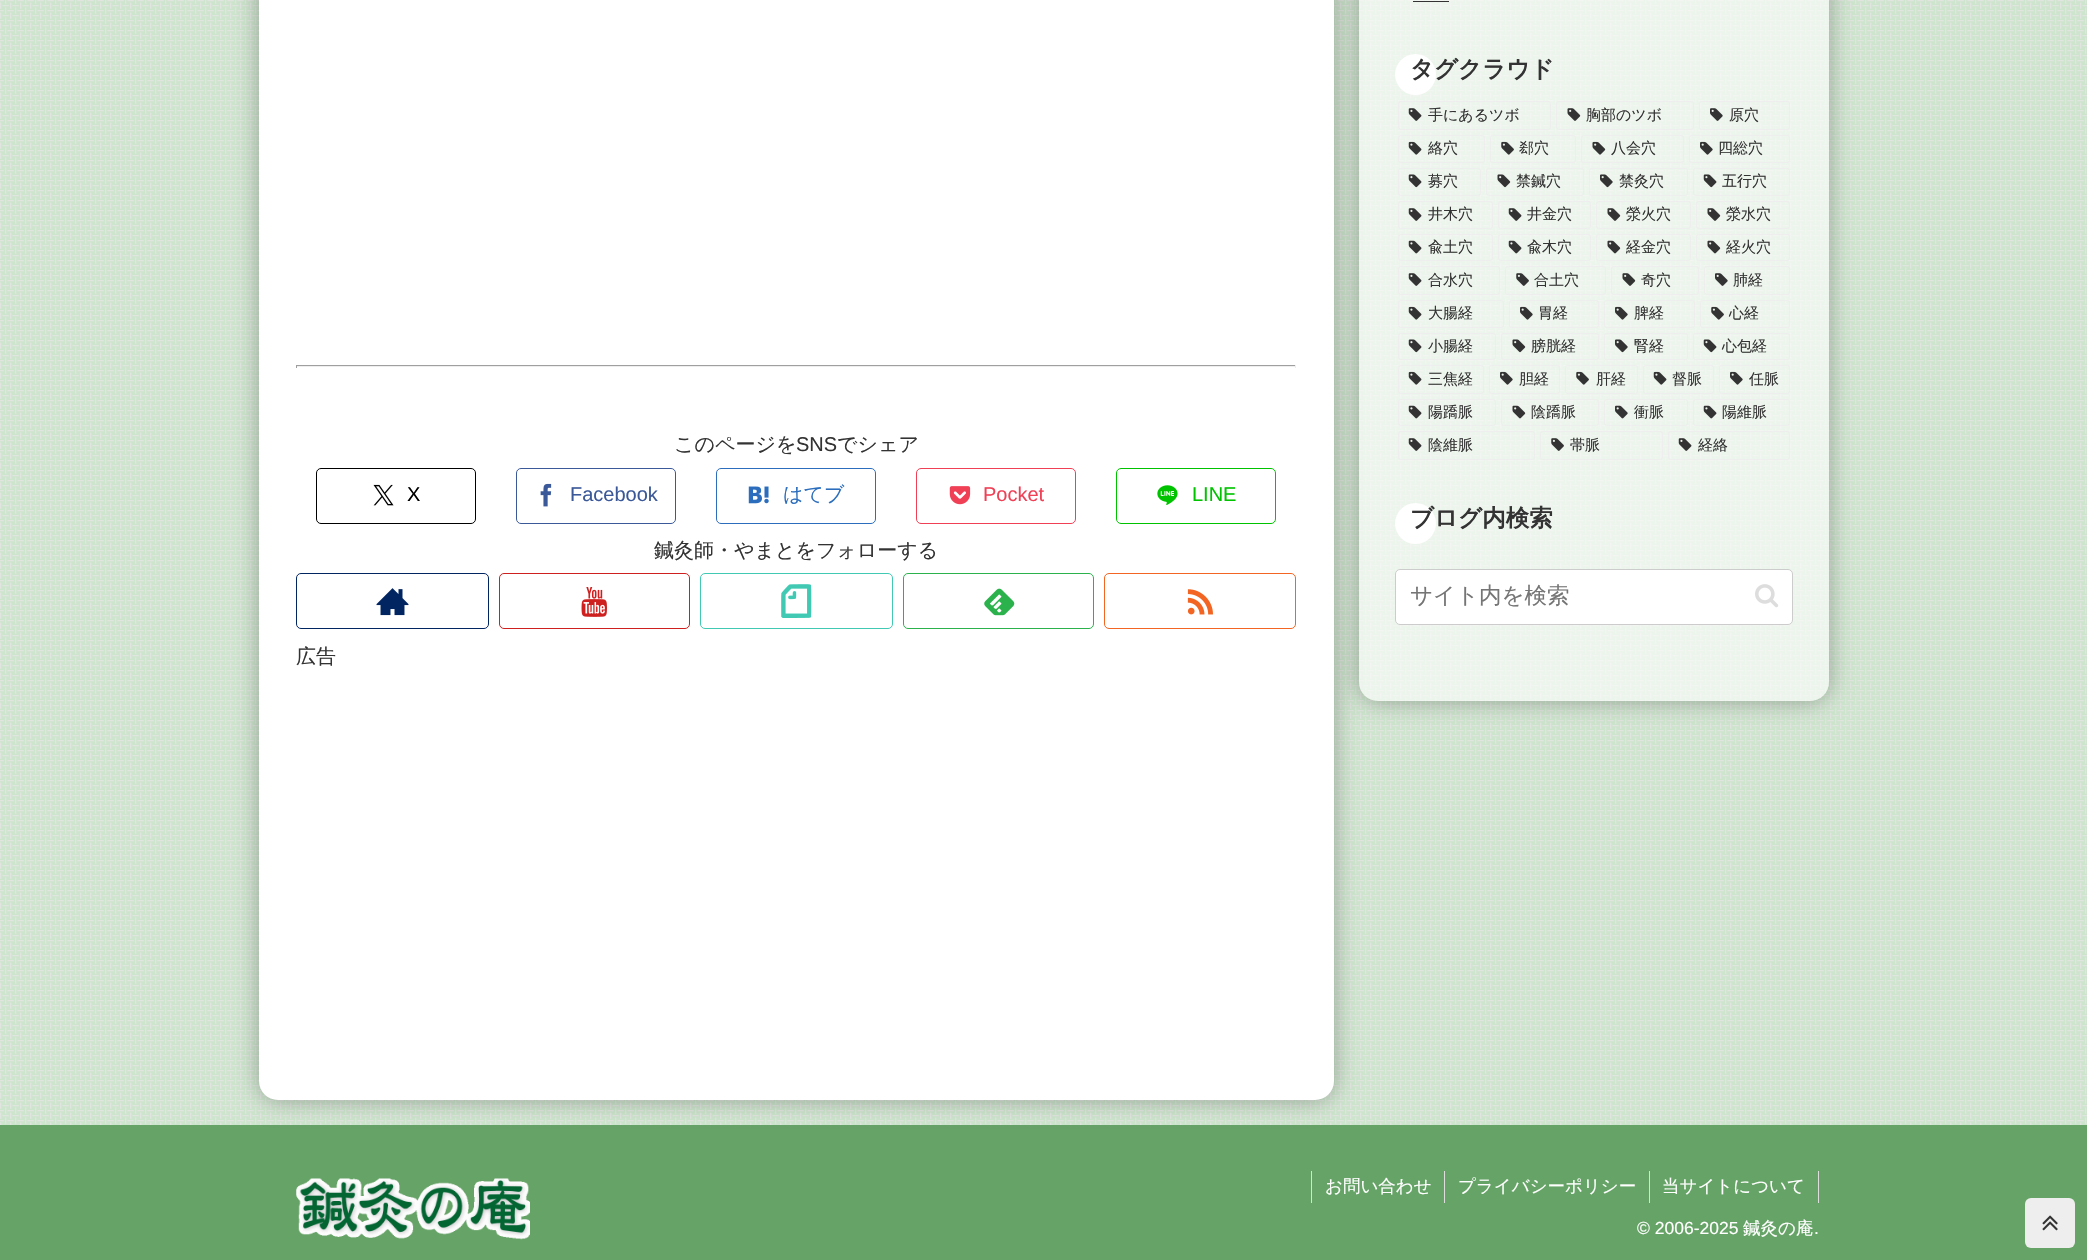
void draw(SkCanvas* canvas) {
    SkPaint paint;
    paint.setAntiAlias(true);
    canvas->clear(0xFFFFFFFF);
    canvas->drawImageRect(SkImages::DeferredFromEncodedData(SkData::MakeFromFileName("img1.png")), SkRect::MakeXYWH(0, 0, 2087, 1125), SkSamplingOptions());
    canvas->save();
    canvas->clipPath(SkPathBuilder(SkPathFillType::kEvenOdd).moveTo(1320, 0).lineTo(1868, 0).lineTo(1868, 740).lineTo(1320, 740).close().moveTo(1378, -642).lineTo(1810, -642).cubicTo(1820.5f, -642, 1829, -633.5f, 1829, -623).lineTo(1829, 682).cubicTo(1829, 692.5f, 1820.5f, 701, 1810, 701).lineTo(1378, 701).cubicTo(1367.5f, 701, 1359, 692.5f, 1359, 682).lineTo(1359, -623).cubicTo(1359, -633.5f, 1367.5f, -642, 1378, -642).close().detach(), true);
    paint.setColor(0x4D000000);
    paint.setMaskFilter(SkMaskFilter::MakeBlur(kNormal_SkBlurStyle, 12.5f));
    canvas->drawRoundRect(SkRect::MakeXYWH(1359, -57, 470, 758), 19, 19, paint);
    paint.setMaskFilter(nullptr);
    canvas->restore();
    paint.setColor(0x99FFFFFF);
    canvas->drawRoundRect(SkRect::MakeXYWH(1359, -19, 470, 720), 19, 19, paint);
    paint.setColor(0xFF66A367);
    canvas->drawRect(SkRect::MakeXYWH(0, 1125, 2087, 135), paint);
    paint.setColor(0x4D000000);
    paint.setMaskFilter(SkMaskFilter::MakeBlur(kNormal_SkBlurStyle, 12.5f));
    canvas->drawRoundRect(SkRect::MakeXYWH(259, -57, 1075, 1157), 19, 19, paint);
    paint.setMaskFilter(nullptr);
    paint.setColor(0xFFFFFFFF);
    canvas->drawRoundRect(SkRect::MakeXYWH(259, -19, 1075, 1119), 19, 19, paint);
    paint.setColor(0xFF9F9F9F);
    canvas->drawRect(SkRect::MakeXYWH(296, 365, 1000, 1), paint);
    paint.setColor(0xFFEEEEEE);
    canvas->drawRect(SkRect::MakeXYWH(1295, 365, 1, 3), paint);
    canvas->drawRect(SkRect::MakeXYWH(296, 366, 1000, 1), paint);
    paint.setColor(0xFF9F9F9F);
    canvas->drawRect(SkRect::MakeXYWH(296, 365, 1, 3), paint);
    SkFont font1(fontMgr->matchFamilyStyle("WenQuanYi Zen Hei", SkFontStyle(500, SkFontStyle::kNormal_Width, SkFontStyle::kUpright_Slant)), 20);
    font1.setSubpixel(true);
    paint.setColor(0xFF333333);
    canvas->drawString("このページを", 674, 451, font1, paint);
    SkFont font2(fontMgr->matchFamilyStyle("Liberation Sans", SkFontStyle::Normal()), 20);
    font2.setSubpixel(true);
    canvas->drawString("SNS", 796, 451, font2, paint);
    canvas->drawString("でシェア", 837, 451, font1, paint);
    paint.setStyle(SkPaint::kStroke_Style);
    paint.setStrokeWidth(1);
    paint.setColor(0xFF000000);
    canvas->drawRoundRect(SkRect::MakeXYWH(316.5f, 468.5f, 159, 55), 4.5f, 4.5f, paint);
    canvas->drawImageRect(SkImages::DeferredFromEncodedData(SkData::MakeFromFileName("img2.png")), SkRect::MakeXYWH(373, 484, 21, 22), SkSamplingOptions());
    paint.setStyle(SkPaint::kFill_Style);
    canvas->drawString("X", 407, 501, font2, paint);
    paint.setStyle(SkPaint::kStroke_Style);
    paint.setColor(0xFF3B5998);
    canvas->drawRoundRect(SkRect::MakeXYWH(516.5f, 468.5f, 159, 55), 4.5f, 4.5f, paint);
    canvas->drawImageRect(SkImages::DeferredFromEncodedData(SkData::MakeFromFileName("img3.png")), SkRect::MakeXYWH(540, 483, 12, 24), SkSamplingOptions());
    paint.setStyle(SkPaint::kFill_Style);
    canvas->drawString("Facebook", 570, 501, font2, paint);
    paint.setStyle(SkPaint::kStroke_Style);
    paint.setColor(0xFF2C6EBD);
    canvas->drawRoundRect(SkRect::MakeXYWH(716.5f, 468.5f, 159, 55), 4.5f, 4.5f, paint);
    canvas->drawImageRect(SkImages::DeferredFromEncodedData(SkData::MakeFromFileName("img4.png")), SkRect::MakeXYWH(748, 486, 21, 18), SkSamplingOptions());
    paint.setStyle(SkPaint::kFill_Style);
    canvas->drawString("はてブ", 783, 501, font1, paint);
    paint.setStyle(SkPaint::kStroke_Style);
    paint.setColor(0xFFEF4056);
    canvas->drawRoundRect(SkRect::MakeXYWH(916.5f, 468.5f, 159, 55), 4.5f, 4.5f, paint);
    canvas->drawImageRect(SkImages::DeferredFromEncodedData(SkData::MakeFromFileName("img5.png")), SkRect::MakeXYWH(949, 486, 22, 19), SkSamplingOptions());
    paint.setStyle(SkPaint::kFill_Style);
    canvas->drawString("Pocket", 983, 501, font2, paint);
    paint.setStyle(SkPaint::kStroke_Style);
    paint.setColor(0xFF00C300);
    canvas->drawRoundRect(SkRect::MakeXYWH(1116.5f, 468.5f, 159, 55), 4.5f, 4.5f, paint);
    canvas->drawImageRect(SkImages::DeferredFromEncodedData(SkData::MakeFromFileName("img6.png")), SkRect::MakeXYWH(1157, 485, 21, 20), SkSamplingOptions());
    paint.setStyle(SkPaint::kFill_Style);
    canvas->drawString("LINE", 1192, 501, font2, paint);
    paint.setColor(0xFF333333);
    canvas->drawString("鍼灸師・やまとをフォローする", 654, 557, font1, paint);
    paint.setStyle(SkPaint::kStroke_Style);
    paint.setColor(0xFF002561);
    canvas->drawRoundRect(SkRect::MakeXYWH(296.5f, 573.5f, 192, 55), 4.5f, 4.5f, paint);
    canvas->drawImageRect(SkImages::DeferredFromEncodedData(SkData::MakeFromFileName("img7.png")), SkRect::MakeXYWH(376, 588, 33, 28), SkSamplingOptions());
    paint.setColor(0xFFCD201F);
    canvas->drawRoundRect(SkRect::MakeXYWH(499.5f, 573.5f, 190, 55), 4.5f, 4.5f, paint);
    canvas->drawImageRect(SkImages::DeferredFromEncodedData(SkData::MakeFromFileName("img8.png")), SkRect::MakeXYWH(581, 587, 26, 30), SkSamplingOptions());
    paint.setColor(0xFF41C9B4);
    canvas->drawRoundRect(SkRect::MakeXYWH(700.5f, 573.5f, 192, 55), 4.5f, 4.5f, paint);
    canvas->drawImageRect(SkImages::DeferredFromEncodedData(SkData::MakeFromFileName("img9.png")), SkRect::MakeXYWH(781, 584, 31, 34), SkSamplingOptions());
    paint.setColor(0xFF2BB24C);
    canvas->drawRoundRect(SkRect::MakeXYWH(903.5f, 573.5f, 190, 55), 4.5f, 4.5f, paint);
    canvas->drawImageRect(SkImages::DeferredFromEncodedData(SkData::MakeFromFileName("img10.png")), SkRect::MakeXYWH(984, 588, 31, 28), SkSamplingOptions());
    paint.setColor(0xFFF26522);
    canvas->drawRoundRect(SkRect::MakeXYWH(1104.5f, 573.5f, 191, 55), 4.5f, 4.5f, paint);
    canvas->drawImageRect(SkImages::DeferredFromEncodedData(SkData::MakeFromFileName("img11.png")), SkRect::MakeXYWH(1187, 589, 26, 26), SkSamplingOptions());
    paint.setStyle(SkPaint::kFill_Style);
    paint.setColor(0xFF333333);
    canvas->drawString("広告", 296, 663, font1, paint);
    canvas->drawRect(SkRect::MakeXYWH(1413, 1, 36, 1), paint);
    paint.setColor(0xFFFFFFFF);
    canvas->drawCircle(1415.5f, 74.5f, 20.5f, paint);
    SkFont font3(fontMgr->matchFamilyStyle("WenQuanYi Zen Hei", SkFontStyle::Bold()), 23.5f);
    font3.setSubpixel(true);
    paint.setColor(0xFF333333);
    canvas->drawString("タグクラウド", 1410, 77, font3, paint);
    paint.setStyle(SkPaint::kStroke_Style);
    paint.setColor(0xFFEEEEEE);
    canvas->drawRoundRect(SkRect::MakeXYWH(1398.5f, 101.5f, 152, 28), 2, 2, paint);
    canvas->drawImageRect(SkImages::DeferredFromEncodedData(SkData::MakeFromFileName("img12.png")), SkRect::MakeXYWH(1408, 108, 14, 13), SkSamplingOptions());
    SkFont font4(fontMgr->matchFamilyStyle("WenQuanYi Zen Hei", SkFontStyle(500, SkFontStyle::kNormal_Width, SkFontStyle::kUpright_Slant)), 15);
    font4.setSubpixel(true);
    paint.setStyle(SkPaint::kFill_Style);
    paint.setColor(0xFF333333);
    canvas->drawString("手にあるツボ", 1428, 120, font4, paint);
    paint.setStyle(SkPaint::kStroke_Style);
    paint.setColor(0xFFEEEEEE);
    canvas->drawRoundRect(SkRect::MakeXYWH(1556.5f, 101.5f, 137, 28), 2, 2, paint);
    canvas->drawImageRect(SkImages::DeferredFromEncodedData(SkData::MakeFromFileName("img13.png")), SkRect::MakeXYWH(1567, 108, 14, 13), SkSamplingOptions());
    paint.setStyle(SkPaint::kFill_Style);
    paint.setColor(0xFF333333);
    canvas->drawString("胸部のツボ", 1586, 120, font4, paint);
    paint.setStyle(SkPaint::kStroke_Style);
    paint.setColor(0xFFEEEEEE);
    canvas->drawRoundRect(SkRect::MakeXYWH(1699.5f, 101.5f, 90, 28), 2, 2, paint);
    canvas->drawImageRect(SkImages::DeferredFromEncodedData(SkData::MakeFromFileName("img14.png")), SkRect::MakeXYWH(1710, 108, 13, 13), SkSamplingOptions());
    paint.setStyle(SkPaint::kFill_Style);
    paint.setColor(0xFF333333);
    canvas->drawString("原穴", 1729, 120, font4, paint);
    paint.setStyle(SkPaint::kStroke_Style);
    paint.setColor(0xFFEEEEEE);
    canvas->drawRoundRect(SkRect::MakeXYWH(1398.5f, 135.5f, 86, 27), 2, 2, paint);
    canvas->drawImageRect(SkImages::DeferredFromEncodedData(SkData::MakeFromFileName("img15.png")), SkRect::MakeXYWH(1408, 141, 14, 14), SkSamplingOptions());
    paint.setStyle(SkPaint::kFill_Style);
    paint.setColor(0xFF333333);
    canvas->drawString("絡穴", 1428, 153, font4, paint);
    paint.setStyle(SkPaint::kStroke_Style);
    paint.setColor(0xFFEEEEEE);
    canvas->drawRoundRect(SkRect::MakeXYWH(1490.5f, 135.5f, 85, 27), 2, 2, paint);
    canvas->drawImageRect(SkImages::DeferredFromEncodedData(SkData::MakeFromFileName("img16.png")), SkRect::MakeXYWH(1501, 141, 13, 14), SkSamplingOptions());
    paint.setStyle(SkPaint::kFill_Style);
    paint.setColor(0xFF333333);
    canvas->drawString("郄穴", 1519, 153, font4, paint);
    paint.setStyle(SkPaint::kStroke_Style);
    paint.setColor(0xFFEEEEEE);
    canvas->drawRoundRect(SkRect::MakeXYWH(1581.5f, 135.5f, 102, 27), 2, 2, paint);
    canvas->drawImageRect(SkImages::DeferredFromEncodedData(SkData::MakeFromFileName("img17.png")), SkRect::MakeXYWH(1592, 141, 14, 14), SkSamplingOptions());
    paint.setStyle(SkPaint::kFill_Style);
    paint.setColor(0xFF333333);
    canvas->drawString("八会穴", 1611, 153, font4, paint);
    paint.setStyle(SkPaint::kStroke_Style);
    paint.setColor(0xFFEEEEEE);
    canvas->drawRoundRect(SkRect::MakeXYWH(1689.5f, 135.5f, 100, 27), 2, 2, paint);
    canvas->drawImageRect(SkImages::DeferredFromEncodedData(SkData::MakeFromFileName("img18.png")), SkRect::MakeXYWH(1700, 141, 13, 14), SkSamplingOptions());
    paint.setStyle(SkPaint::kFill_Style);
    paint.setColor(0xFF333333);
    canvas->drawString("四総穴", 1718, 153, font4, paint);
    paint.setStyle(SkPaint::kStroke_Style);
    paint.setColor(0xFFEEEEEE);
    canvas->drawRoundRect(SkRect::MakeXYWH(1398.5f, 168.5f, 82, 27), 2, 2, paint);
    canvas->drawImageRect(SkImages::DeferredFromEncodedData(SkData::MakeFromFileName("img19.png")), SkRect::MakeXYWH(1408, 174, 14, 14), SkSamplingOptions());
    paint.setStyle(SkPaint::kFill_Style);
    paint.setColor(0xFF333333);
    canvas->drawString("募穴", 1428, 186, font4, paint);
    paint.setStyle(SkPaint::kStroke_Style);
    paint.setColor(0xFFEEEEEE);
    canvas->drawRoundRect(SkRect::MakeXYWH(1486.5f, 168.5f, 97, 27), 2, 2, paint);
    canvas->drawImageRect(SkImages::DeferredFromEncodedData(SkData::MakeFromFileName("img20.png")), SkRect::MakeXYWH(1497, 174, 14, 14), SkSamplingOptions());
    paint.setStyle(SkPaint::kFill_Style);
    paint.setColor(0xFF333333);
    canvas->drawString("禁鍼穴", 1516, 186, font4, paint);
    paint.setStyle(SkPaint::kStroke_Style);
    paint.setColor(0xFFEEEEEE);
    canvas->drawRoundRect(SkRect::MakeXYWH(1589.5f, 168.5f, 98, 27), 2, 2, paint);
    canvas->drawImageRect(SkImages::DeferredFromEncodedData(SkData::MakeFromFileName("img21.png")), SkRect::MakeXYWH(1600, 174, 13, 14), SkSamplingOptions());
    paint.setStyle(SkPaint::kFill_Style);
    paint.setColor(0xFF333333);
    canvas->drawString("禁灸穴", 1619, 186, font4, paint);
    paint.setStyle(SkPaint::kStroke_Style);
    paint.setColor(0xFFEEEEEE);
    canvas->drawRoundRect(SkRect::MakeXYWH(1693.5f, 168.5f, 96, 27), 2, 2, paint);
    canvas->drawImageRect(SkImages::DeferredFromEncodedData(SkData::MakeFromFileName("img22.png")), SkRect::MakeXYWH(1703, 174, 14, 14), SkSamplingOptions());
    paint.setStyle(SkPaint::kFill_Style);
    paint.setColor(0xFF333333);
    canvas->drawString("五行穴", 1722, 186, font4, paint);
    paint.setStyle(SkPaint::kStroke_Style);
    paint.setColor(0xFFEEEEEE);
    canvas->drawRoundRect(SkRect::MakeXYWH(1398.5f, 201.5f, 94, 27), 2, 2, paint);
    canvas->drawImageRect(SkImages::DeferredFromEncodedData(SkData::MakeFromFileName("img12.png")), SkRect::MakeXYWH(1408, 208, 14, 13), SkSamplingOptions());
    paint.setStyle(SkPaint::kFill_Style);
    paint.setColor(0xFF333333);
    canvas->drawString("井木穴", 1428, 219, font4, paint);
    paint.setStyle(SkPaint::kStroke_Style);
    paint.setColor(0xFFEEEEEE);
    canvas->drawRoundRect(SkRect::MakeXYWH(1498.5f, 201.5f, 92, 27), 2, 2, paint);
    canvas->drawImageRect(SkImages::DeferredFromEncodedData(SkData::MakeFromFileName("img12.png")), SkRect::MakeXYWH(1508, 208, 14, 13), SkSamplingOptions());
    paint.setStyle(SkPaint::kFill_Style);
    paint.setColor(0xFF333333);
    canvas->drawString("井金穴", 1527, 219, font4, paint);
    paint.setStyle(SkPaint::kStroke_Style);
    paint.setColor(0xFFEEEEEE);
    canvas->drawRoundRect(SkRect::MakeXYWH(1596.5f, 201.5f, 94, 27), 2, 2, paint);
    canvas->drawImageRect(SkImages::DeferredFromEncodedData(SkData::MakeFromFileName("img13.png")), SkRect::MakeXYWH(1607, 208, 14, 13), SkSamplingOptions());
    paint.setStyle(SkPaint::kFill_Style);
    paint.setColor(0xFF333333);
    canvas->drawString("滎火穴", 1626, 219, font4, paint);
    paint.setStyle(SkPaint::kStroke_Style);
    paint.setColor(0xFFEEEEEE);
    canvas->drawRoundRect(SkRect::MakeXYWH(1696.5f, 201.5f, 93, 27), 2, 2, paint);
    canvas->drawImageRect(SkImages::DeferredFromEncodedData(SkData::MakeFromFileName("img13.png")), SkRect::MakeXYWH(1707, 208, 14, 13), SkSamplingOptions());
    paint.setStyle(SkPaint::kFill_Style);
    paint.setColor(0xFF333333);
    canvas->drawString("滎水穴", 1726, 219, font4, paint);
    paint.setStyle(SkPaint::kStroke_Style);
    paint.setColor(0xFFEEEEEE);
    canvas->drawRoundRect(SkRect::MakeXYWH(1398.5f, 234.5f, 94, 26), 2, 2, paint);
    canvas->drawImageRect(SkImages::DeferredFromEncodedData(SkData::MakeFromFileName("img23.png")), SkRect::MakeXYWH(1408, 240, 14, 14), SkSamplingOptions());
    paint.setStyle(SkPaint::kFill_Style);
    paint.setColor(0xFF333333);
    canvas->drawString("兪土穴", 1428, 252, font4, paint);
    paint.setStyle(SkPaint::kStroke_Style);
    paint.setColor(0xFFEEEEEE);
    canvas->drawRoundRect(SkRect::MakeXYWH(1498.5f, 234.5f, 92, 26), 2, 2, paint);
    canvas->drawImageRect(SkImages::DeferredFromEncodedData(SkData::MakeFromFileName("img23.png")), SkRect::MakeXYWH(1508, 240, 14, 14), SkSamplingOptions());
    paint.setStyle(SkPaint::kFill_Style);
    paint.setColor(0xFF333333);
    canvas->drawString("兪木穴", 1527, 252, font4, paint);
    paint.setStyle(SkPaint::kStroke_Style);
    paint.setColor(0xFFEEEEEE);
    canvas->drawRoundRect(SkRect::MakeXYWH(1596.5f, 234.5f, 94, 26), 2, 2, paint);
    canvas->drawImageRect(SkImages::DeferredFromEncodedData(SkData::MakeFromFileName("img24.png")), SkRect::MakeXYWH(1607, 240, 14, 14), SkSamplingOptions());
    paint.setStyle(SkPaint::kFill_Style);
    paint.setColor(0xFF333333);
    canvas->drawString("経金穴", 1626, 252, font4, paint);
    paint.setStyle(SkPaint::kStroke_Style);
    paint.setColor(0xFFEEEEEE);
    canvas->drawRoundRect(SkRect::MakeXYWH(1696.5f, 234.5f, 93, 26), 2, 2, paint);
    canvas->drawImageRect(SkImages::DeferredFromEncodedData(SkData::MakeFromFileName("img24.png")), SkRect::MakeXYWH(1707, 240, 14, 14), SkSamplingOptions());
    paint.setStyle(SkPaint::kFill_Style);
    paint.setColor(0xFF333333);
    canvas->drawString("経火穴", 1726, 252, font4, paint);
    paint.setStyle(SkPaint::kStroke_Style);
    paint.setColor(0xFFEEEEEE);
    canvas->drawRoundRect(SkRect::MakeXYWH(1398.5f, 266.5f, 101, 28), 2, 2, paint);
    canvas->drawImageRect(SkImages::DeferredFromEncodedData(SkData::MakeFromFileName("img25.png")), SkRect::MakeXYWH(1408, 273, 14, 13), SkSamplingOptions());
    paint.setStyle(SkPaint::kFill_Style);
    paint.setColor(0xFF333333);
    canvas->drawString("合水穴", 1428, 285, font4, paint);
    paint.setStyle(SkPaint::kStroke_Style);
    paint.setColor(0xFFEEEEEE);
    canvas->drawRoundRect(SkRect::MakeXYWH(1505.5f, 266.5f, 100, 28), 2, 2, paint);
    canvas->drawImageRect(SkImages::DeferredFromEncodedData(SkData::MakeFromFileName("img26.png")), SkRect::MakeXYWH(1516, 273, 13, 13), SkSamplingOptions());
    paint.setStyle(SkPaint::kFill_Style);
    paint.setColor(0xFF333333);
    canvas->drawString("合土穴", 1534, 285, font4, paint);
    paint.setStyle(SkPaint::kStroke_Style);
    paint.setColor(0xFFEEEEEE);
    canvas->drawRoundRect(SkRect::MakeXYWH(1611.5f, 266.5f, 87, 28), 2, 2, paint);
    canvas->drawImageRect(SkImages::DeferredFromEncodedData(SkData::MakeFromFileName("img13.png")), SkRect::MakeXYWH(1622, 273, 14, 13), SkSamplingOptions());
    paint.setStyle(SkPaint::kFill_Style);
    paint.setColor(0xFF333333);
    canvas->drawString("奇穴", 1641, 285, font4, paint);
    paint.setStyle(SkPaint::kStroke_Style);
    paint.setColor(0xFFEEEEEE);
    canvas->drawRoundRect(SkRect::MakeXYWH(1704.5f, 266.5f, 85, 28), 2, 2, paint);
    canvas->drawImageRect(SkImages::DeferredFromEncodedData(SkData::MakeFromFileName("img14.png")), SkRect::MakeXYWH(1715, 273, 13, 13), SkSamplingOptions());
    paint.setStyle(SkPaint::kFill_Style);
    paint.setColor(0xFF333333);
    canvas->drawString("肺経", 1733, 285, font4, paint);
    paint.setStyle(SkPaint::kStroke_Style);
    paint.setColor(0xFFEEEEEE);
    canvas->drawRoundRect(SkRect::MakeXYWH(1398.5f, 300.5f, 105, 27), 2, 2, paint);
    canvas->drawImageRect(SkImages::DeferredFromEncodedData(SkData::MakeFromFileName("img27.png")), SkRect::MakeXYWH(1408, 306, 14, 14), SkSamplingOptions());
    paint.setStyle(SkPaint::kFill_Style);
    paint.setColor(0xFF333333);
    canvas->drawString("大腸経", 1428, 318, font4, paint);
    paint.setStyle(SkPaint::kStroke_Style);
    paint.setColor(0xFFEEEEEE);
    canvas->drawRoundRect(SkRect::MakeXYWH(1509.5f, 300.5f, 89, 27), 2, 2, paint);
    canvas->drawImageRect(SkImages::DeferredFromEncodedData(SkData::MakeFromFileName("img28.png")), SkRect::MakeXYWH(1520, 306, 13, 14), SkSamplingOptions());
    paint.setStyle(SkPaint::kFill_Style);
    paint.setColor(0xFF333333);
    canvas->drawString("胃経", 1538, 318, font4, paint);
    paint.setStyle(SkPaint::kStroke_Style);
    paint.setColor(0xFFEEEEEE);
    canvas->drawRoundRect(SkRect::MakeXYWH(1604.5f, 300.5f, 90, 27), 2, 2, paint);
    canvas->drawImageRect(SkImages::DeferredFromEncodedData(SkData::MakeFromFileName("img18.png")), SkRect::MakeXYWH(1615, 306, 13, 14), SkSamplingOptions());
    paint.setStyle(SkPaint::kFill_Style);
    paint.setColor(0xFF333333);
    canvas->drawString("脾経", 1634, 318, font4, paint);
    paint.setStyle(SkPaint::kStroke_Style);
    paint.setColor(0xFFEEEEEE);
    canvas->drawRoundRect(SkRect::MakeXYWH(1700.5f, 300.5f, 89, 27), 2, 2, paint);
    canvas->drawImageRect(SkImages::DeferredFromEncodedData(SkData::MakeFromFileName("img29.png")), SkRect::MakeXYWH(1711, 306, 13, 14), SkSamplingOptions());
    paint.setStyle(SkPaint::kFill_Style);
    paint.setColor(0xFF333333);
    canvas->drawString("心経", 1729, 318, font4, paint);
    paint.setStyle(SkPaint::kStroke_Style);
    paint.setColor(0xFFEEEEEE);
    canvas->drawRoundRect(SkRect::MakeXYWH(1398.5f, 333.5f, 97, 26), 2, 2, paint);
    canvas->drawImageRect(SkImages::DeferredFromEncodedData(SkData::MakeFromFileName("img22.png")), SkRect::MakeXYWH(1408, 339, 14, 14), SkSamplingOptions());
    paint.setStyle(SkPaint::kFill_Style);
    paint.setColor(0xFF333333);
    canvas->drawString("小腸経", 1428, 351, font4, paint);
    paint.setStyle(SkPaint::kStroke_Style);
    paint.setColor(0xFFEEEEEE);
    canvas->drawRoundRect(SkRect::MakeXYWH(1501.5f, 333.5f, 97, 26), 2, 2, paint);
    canvas->drawImageRect(SkImages::DeferredFromEncodedData(SkData::MakeFromFileName("img20.png")), SkRect::MakeXYWH(1512, 339, 14, 14), SkSamplingOptions());
    paint.setStyle(SkPaint::kFill_Style);
    paint.setColor(0xFF333333);
    canvas->drawString("膀胱経", 1531, 351, font4, paint);
    paint.setStyle(SkPaint::kStroke_Style);
    paint.setColor(0xFFEEEEEE);
    canvas->drawRoundRect(SkRect::MakeXYWH(1604.5f, 333.5f, 83, 26), 2, 2, paint);
    canvas->drawImageRect(SkImages::DeferredFromEncodedData(SkData::MakeFromFileName("img21.png")), SkRect::MakeXYWH(1615, 339, 13, 14), SkSamplingOptions());
    paint.setStyle(SkPaint::kFill_Style);
    paint.setColor(0xFF333333);
    canvas->drawString("腎経", 1634, 351, font4, paint);
    paint.setStyle(SkPaint::kStroke_Style);
    paint.setColor(0xFFEEEEEE);
    canvas->drawRoundRect(SkRect::MakeXYWH(1693.5f, 333.5f, 96, 26), 2, 2, paint);
    canvas->drawImageRect(SkImages::DeferredFromEncodedData(SkData::MakeFromFileName("img19.png")), SkRect::MakeXYWH(1703, 339, 14, 14), SkSamplingOptions());
    paint.setStyle(SkPaint::kFill_Style);
    paint.setColor(0xFF333333);
    canvas->drawString("心包経", 1722, 351, font4, paint);
    paint.setStyle(SkPaint::kStroke_Style);
    paint.setColor(0xFFEEEEEE);
    canvas->drawRoundRect(SkRect::MakeXYWH(1398.5f, 365.5f, 85, 28), 2, 2, paint);
    canvas->drawImageRect(SkImages::DeferredFromEncodedData(SkData::MakeFromFileName("img15.png")), SkRect::MakeXYWH(1408, 371, 14, 14), SkSamplingOptions());
    paint.setStyle(SkPaint::kFill_Style);
    paint.setColor(0xFF333333);
    canvas->drawString("三焦経", 1428, 384, font4, paint);
    paint.setStyle(SkPaint::kStroke_Style);
    paint.setColor(0xFFEEEEEE);
    canvas->drawRoundRect(SkRect::MakeXYWH(1489.5f, 365.5f, 70, 28), 2, 2, paint);
    canvas->drawImageRect(SkImages::DeferredFromEncodedData(SkData::MakeFromFileName("img18.png")), SkRect::MakeXYWH(1500, 371, 13, 14), SkSamplingOptions());
    paint.setStyle(SkPaint::kFill_Style);
    paint.setColor(0xFF333333);
    canvas->drawString("胆経", 1519, 384, font4, paint);
    paint.setStyle(SkPaint::kStroke_Style);
    paint.setColor(0xFFEEEEEE);
    canvas->drawRoundRect(SkRect::MakeXYWH(1565.5f, 365.5f, 72, 28), 2, 2, paint);
    canvas->drawImageRect(SkImages::DeferredFromEncodedData(SkData::MakeFromFileName("img29.png")), SkRect::MakeXYWH(1576, 371, 13, 14), SkSamplingOptions());
    paint.setStyle(SkPaint::kFill_Style);
    paint.setColor(0xFF333333);
    canvas->drawString("肝経", 1596, 384, font4, paint);
    paint.setStyle(SkPaint::kStroke_Style);
    paint.setColor(0xFFEEEEEE);
    canvas->drawRoundRect(SkRect::MakeXYWH(1643.5f, 365.5f, 70, 28), 2, 2, paint);
    canvas->drawImageRect(SkImages::DeferredFromEncodedData(SkData::MakeFromFileName("img27.png")), SkRect::MakeXYWH(1653, 371, 14, 14), SkSamplingOptions());
    paint.setStyle(SkPaint::kFill_Style);
    paint.setColor(0xFF333333);
    canvas->drawString("督脈", 1672, 384, font4, paint);
    paint.setStyle(SkPaint::kStroke_Style);
    paint.setColor(0xFFEEEEEE);
    canvas->drawRoundRect(SkRect::MakeXYWH(1719.5f, 365.5f, 70, 28), 2, 2, paint);
    canvas->drawImageRect(SkImages::DeferredFromEncodedData(SkData::MakeFromFileName("img18.png")), SkRect::MakeXYWH(1730, 371, 13, 14), SkSamplingOptions());
    paint.setStyle(SkPaint::kFill_Style);
    paint.setColor(0xFF333333);
    canvas->drawString("任脈", 1749, 384, font4, paint);
    paint.setStyle(SkPaint::kStroke_Style);
    paint.setColor(0xFFEEEEEE);
    canvas->drawRoundRect(SkRect::MakeXYWH(1398.5f, 399.5f, 97, 26), 2, 2, paint);
    canvas->drawImageRect(SkImages::DeferredFromEncodedData(SkData::MakeFromFileName("img30.png")), SkRect::MakeXYWH(1408, 405, 14, 14), SkSamplingOptions());
    paint.setStyle(SkPaint::kFill_Style);
    paint.setColor(0xFF333333);
    canvas->drawString("陽蹻脈", 1428, 417, font4, paint);
    paint.setStyle(SkPaint::kStroke_Style);
    paint.setColor(0xFFEEEEEE);
    canvas->drawRoundRect(SkRect::MakeXYWH(1501.5f, 399.5f, 97, 26), 2, 2, paint);
    canvas->drawImageRect(SkImages::DeferredFromEncodedData(SkData::MakeFromFileName("img24.png")), SkRect::MakeXYWH(1512, 405, 14, 14), SkSamplingOptions());
    paint.setStyle(SkPaint::kFill_Style);
    paint.setColor(0xFF333333);
    canvas->drawString("陰蹻脈", 1531, 417, font4, paint);
    paint.setStyle(SkPaint::kStroke_Style);
    paint.setColor(0xFFEEEEEE);
    canvas->drawRoundRect(SkRect::MakeXYWH(1604.5f, 399.5f, 83, 26), 2, 2, paint);
    canvas->drawImageRect(SkImages::DeferredFromEncodedData(SkData::MakeFromFileName("img31.png")), SkRect::MakeXYWH(1615, 405, 13, 14), SkSamplingOptions());
    paint.setStyle(SkPaint::kFill_Style);
    paint.setColor(0xFF333333);
    canvas->drawString("衝脈", 1634, 417, font4, paint);
    paint.setStyle(SkPaint::kStroke_Style);
    paint.setColor(0xFFEEEEEE);
    canvas->drawRoundRect(SkRect::MakeXYWH(1693.5f, 399.5f, 96, 26), 2, 2, paint);
    canvas->drawImageRect(SkImages::DeferredFromEncodedData(SkData::MakeFromFileName("img23.png")), SkRect::MakeXYWH(1703, 405, 14, 14), SkSamplingOptions());
    paint.setStyle(SkPaint::kFill_Style);
    paint.setColor(0xFF333333);
    canvas->drawString("陽維脈", 1722, 417, font4, paint);
    paint.setStyle(SkPaint::kStroke_Style);
    paint.setColor(0xFFEEEEEE);
    canvas->drawRoundRect(SkRect::MakeXYWH(1398.5f, 431.5f, 136, 28), 2, 2, paint);
    canvas->drawImageRect(SkImages::DeferredFromEncodedData(SkData::MakeFromFileName("img12.png")), SkRect::MakeXYWH(1408, 438, 14, 13), SkSamplingOptions());
    paint.setStyle(SkPaint::kFill_Style);
    paint.setColor(0xFF333333);
    canvas->drawString("陰維脈", 1428, 450, font4, paint);
    paint.setStyle(SkPaint::kStroke_Style);
    paint.setColor(0xFFEEEEEE);
    canvas->drawRoundRect(SkRect::MakeXYWH(1540.5f, 431.5f, 122, 28), 2, 2, paint);
    canvas->drawImageRect(SkImages::DeferredFromEncodedData(SkData::MakeFromFileName("img26.png")), SkRect::MakeXYWH(1551, 438, 13, 13), SkSamplingOptions());
    paint.setStyle(SkPaint::kFill_Style);
    paint.setColor(0xFF333333);
    canvas->drawString("帯脈", 1570, 450, font4, paint);
    paint.setStyle(SkPaint::kStroke_Style);
    paint.setColor(0xFFEEEEEE);
    canvas->drawRoundRect(SkRect::MakeXYWH(1668.5f, 431.5f, 121, 28), 2, 2, paint);
    canvas->drawImageRect(SkImages::DeferredFromEncodedData(SkData::MakeFromFileName("img12.png")), SkRect::MakeXYWH(1678, 438, 14, 13), SkSamplingOptions());
    paint.setStyle(SkPaint::kFill_Style);
    paint.setColor(0xFF333333);
    canvas->drawString("経絡", 1698, 450, font4, paint);
    paint.setColor(0xFFFFFFFF);
    canvas->drawCircle(1415.5f, 523.5f, 20.5f, paint);
    paint.setColor(0xFF333333);
    canvas->drawString("ブログ内検索", 1410, 526, font3, paint);
    paint.setColor(0xFFFFFFFF);
    canvas->drawRoundRect(SkRect::MakeXYWH(1395.5f, 569.5f, 397, 55), 4.5f, 4.5f, paint);
    paint.setStyle(SkPaint::kStroke_Style);
    paint.setColor(0xFFCCCCCC);
    canvas->drawRoundRect(SkRect::MakeXYWH(1395.5f, 569.5f, 397, 55), 4.5f, 4.5f, paint);
    SkFont font5(fontMgr->matchFamilyStyle("WenQuanYi Zen Hei", SkFontStyle(500, SkFontStyle::kNormal_Width, SkFontStyle::kUpright_Slant)), 22.5f);
    font5.setSubpixel(true);
    paint.setStyle(SkPaint::kFill_Style);
    paint.setColor(0xFF757575);
    canvas->drawString("サイト内を検索", 1410, 603, font5, paint);
    canvas->drawImageRect(SkImages::DeferredFromEncodedData(SkData::MakeFromFileName("img32.png")), SkRect::MakeXYWH(1755, 584, 24, 24), SkSamplingOptions());
    canvas->drawImageRect(SkImages::DeferredFromEncodedData(SkData::MakeFromFileName("img33.png")), SkRect::MakeXYWH(296, 1178, 234, 62), SkSamplingOptions());
    paint.setColor(0xFFDDDDDD);
    canvas->drawRect(SkRect::MakeXYWH(1311, 1171, 1, 32), paint);
    SkFont font6(fontMgr->matchFamilyStyle("WenQuanYi Zen Hei", SkFontStyle(500, SkFontStyle::kNormal_Width, SkFontStyle::kUpright_Slant)), 17.5f);
    font6.setSubpixel(true);
    paint.setColor(0xFFFFFFFF);
    canvas->drawString("お問い合わせ", 1325, 1192, font6, paint);
    paint.setColor(0xFFDDDDDD);
    canvas->drawRect(SkRect::MakeXYWH(1444, 1171, 1, 32), paint);
    paint.setColor(0xFFFFFFFF);
    canvas->drawString("プライバシーポリシー", 1458, 1192, font6, paint);
    paint.setColor(0xFFDDDDDD);
    canvas->drawRect(SkRect::MakeXYWH(1818, 1171, 1, 32), paint);
    canvas->drawRect(SkRect::MakeXYWH(1649, 1171, 1, 32), paint);
    paint.setColor(0xFFFFFFFF);
    canvas->drawString("当サイトについて", 1662, 1192, font6, paint);
    SkFont font7(fontMgr->matchFamilyStyle("Liberation Sans", SkFontStyle::Normal()), 17.5f);
    font7.setSubpixel(true);
    canvas->drawString("© 2006-2025", 1637, 1234, font7, paint);
    canvas->drawString("鍼灸の庵", 1743, 1234, font6, paint);
    canvas->drawString(".", 1814, 1234, font7, paint);
    paint.setColor(0xFFEEEEEE);
    canvas->drawRoundRect(SkRect::MakeXYWH(2025, 1198, 50, 50), 6, 6, paint);
    canvas->drawImageRect(SkImages::DeferredFromEncodedData(SkData::MakeFromFileName("img34.png")), SkRect::MakeXYWH(2042, 1215, 16, 16), SkSamplingOptions());
}
